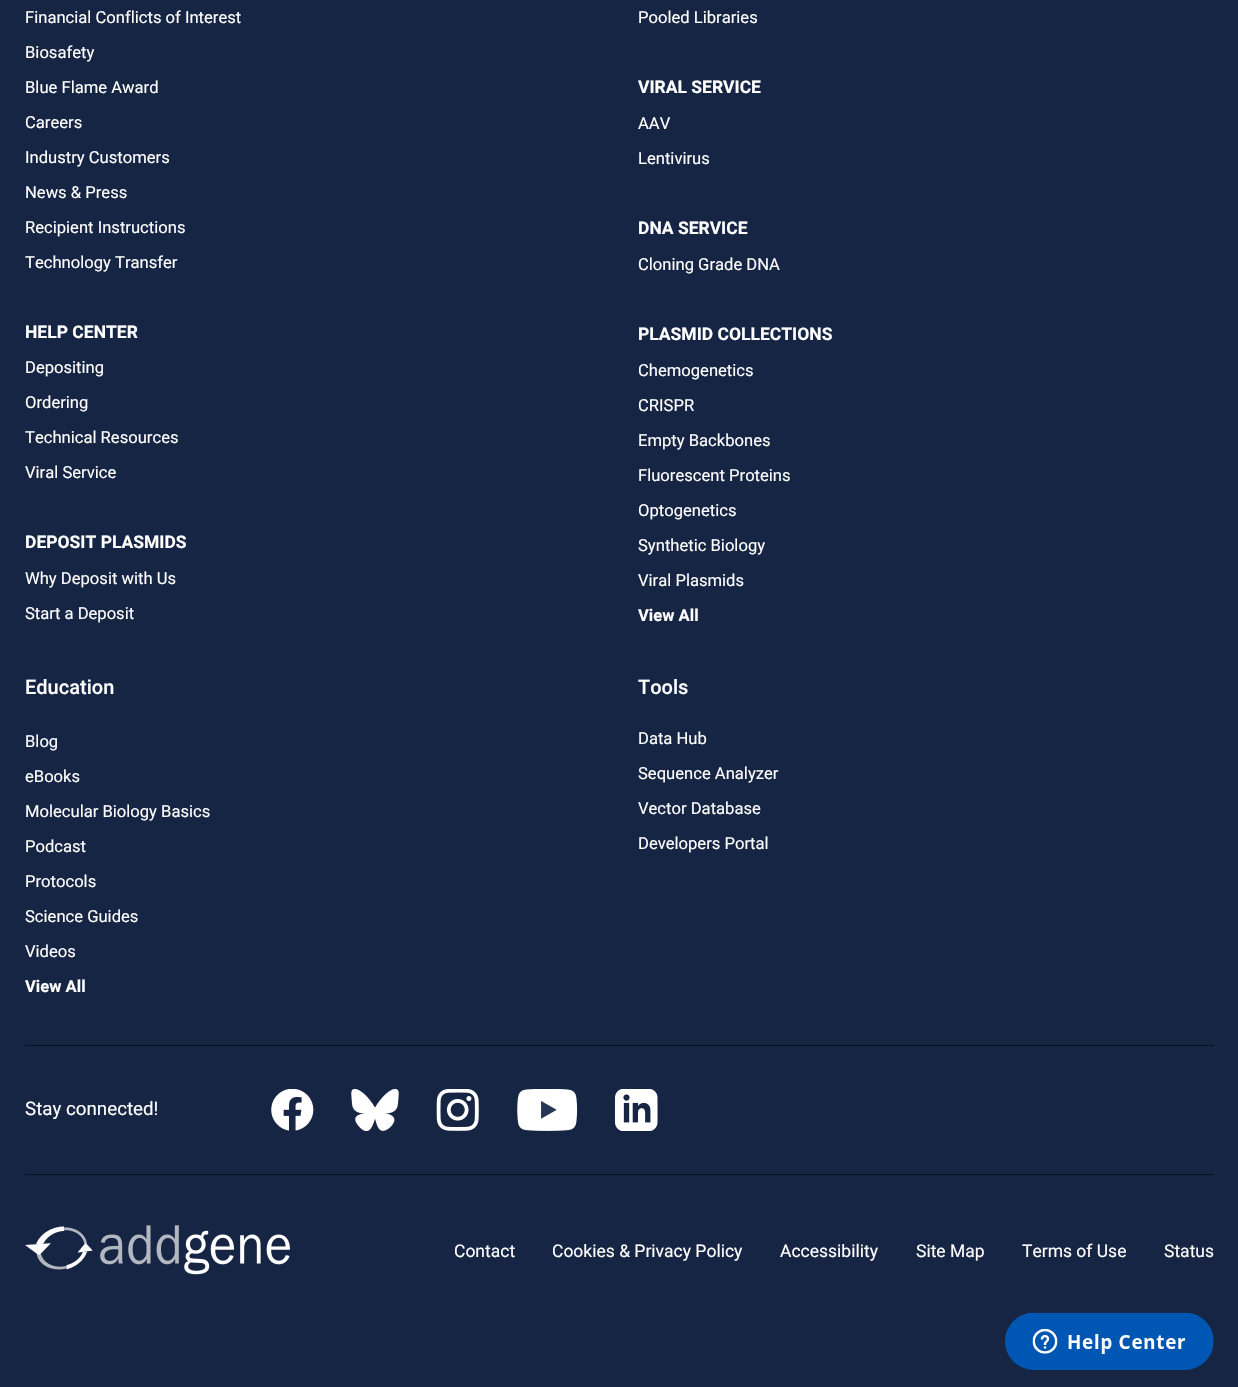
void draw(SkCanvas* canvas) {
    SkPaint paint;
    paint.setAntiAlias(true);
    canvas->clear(0xFFFFFFFF);
    paint.setColor(0xFF172544);
    canvas->drawPath(SkPathBuilder(SkPathFillType::kEvenOdd).moveTo(-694, -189).lineTo(-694, 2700).lineTo(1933, 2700).lineTo(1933, -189).close().moveTo(0, -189).lineTo(0, 1312).lineTo(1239, 1312).lineTo(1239, -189).close().detach(), paint);
    canvas->drawRect(SkRect::MakeXYWH(0, 0, 1238, 1312), paint);
    SkFont font1(fontMgr->matchFamilyStyle("Roboto", SkFontStyle::Normal()), 16.6f);
    font1.setSubpixel(true);
    paint.setColor(0xFFFFFFFF);
    canvas->drawString("Financial Conflicts of Interest", 25, 23, font1, paint);
    canvas->drawString("Biosafety", 25, 58, font1, paint);
    canvas->drawString("Blue Flame Award", 25, 93, font1, paint);
    canvas->drawString("Careers", 25, 128, font1, paint);
    canvas->drawString("Industry Customers", 25, 163, font1, paint);
    canvas->drawString("News & Press", 25, 198, font1, paint);
    canvas->drawString("Recipient Instructions", 25, 233, font1, paint);
    canvas->drawString("Technology Transfer", 25, 268, font1, paint);
    SkFont font2(fontMgr->matchFamilyStyle("Roboto", SkFontStyle::Bold()), 17.5f);
    font2.setSubpixel(true);
    canvas->drawString("HELP CENTER", 25, 338, font2, paint);
    canvas->drawString("Depositing", 25, 373, font1, paint);
    canvas->drawString("Ordering", 25, 408, font1, paint);
    canvas->drawString("Technical Resources", 25, 443, font1, paint);
    canvas->drawString("Viral Service", 25, 478, font1, paint);
    canvas->drawString("DEPOSIT PLASMIDS", 25, 548, font2, paint);
    canvas->drawString("Why Deposit with Us", 25, 584, font1, paint);
    canvas->drawString("Start a Deposit", 25, 619, font1, paint);
    canvas->drawString("Pooled Libraries", 638, 23, font1, paint);
    canvas->drawString("VIRAL SERVICE", 638, 93, font2, paint);
    canvas->drawString("AAV", 638, 129, font1, paint);
    canvas->drawString("Lentivirus", 638, 164, font1, paint);
    canvas->drawString("DNA SERVICE", 638, 234, font2, paint);
    canvas->drawString("Cloning Grade DNA", 638, 270, font1, paint);
    canvas->drawString("PLASMID COLLECTIONS", 638, 340, font2, paint);
    canvas->drawString("Chemogenetics", 638, 376, font1, paint);
    canvas->drawString("CRISPR", 638, 411, font1, paint);
    canvas->drawString("Empty Backbones", 638, 446, font1, paint);
    canvas->drawString("Fluorescent Proteins", 638, 481, font1, paint);
    canvas->drawString("Optogenetics", 638, 516, font1, paint);
    canvas->drawString("Synthetic Biology", 638, 551, font1, paint);
    canvas->drawString("Viral Plasmids", 638, 586, font1, paint);
    SkFont font3(fontMgr->matchFamilyStyle("Roboto", SkFontStyle::Bold()), 16.6f);
    font3.setSubpixel(true);
    canvas->drawString("View All", 638, 621, font3, paint);
    SkFont font4(fontMgr->matchFamilyStyle("Roboto", SkFontStyle(500, SkFontStyle::kNormal_Width, SkFontStyle::kUpright_Slant)), 20);
    font4.setSubpixel(true);
    canvas->drawString("Education", 25, 694, font4, paint);
    canvas->drawString("Blog", 25, 747, font1, paint);
    canvas->drawString("eBooks", 25, 782, font1, paint);
    canvas->drawString("Molecular Biology Basics", 25, 817, font1, paint);
    canvas->drawString("Podcast", 25, 852, font1, paint);
    canvas->drawString("Protocols", 25, 887, font1, paint);
    canvas->drawString("Science Guides", 25, 922, font1, paint);
    canvas->drawString("Videos", 25, 957, font1, paint);
    canvas->drawString("View All", 25, 992, font3, paint);
    canvas->drawString("Tools", 638, 694, font4, paint);
    canvas->drawString("Data Hub", 638, 744, font1, paint);
    canvas->drawString("Sequence Analyzer", 638, 779, font1, paint);
    canvas->drawString("Vector Database", 638, 814, font1, paint);
    canvas->drawString("Developers Portal", 638, 849, font1, paint);
    paint.setColor(0xFF0A101E);
    canvas->drawRect(SkRect::MakeXYWH(25, 1045, 1189, 1), paint);
    canvas->drawRect(SkRect::MakeXYWH(25, 1174, 1189, 1), paint);
    SkFont font5(fontMgr->matchFamilyStyle("Roboto", SkFontStyle::Normal()), 18.75f);
    font5.setSubpixel(true);
    paint.setColor(0xFFFFFFFF);
    canvas->drawString("Stay connected!", 25, 1115, font5, paint);
    canvas->drawImageRect(SkImages::DeferredFromEncodedData(SkData::MakeFromFileName("img1.png")), SkRect::MakeXYWH(271, 1089, 43, 42), SkSamplingOptions());
    canvas->drawImageRect(SkImages::DeferredFromEncodedData(SkData::MakeFromFileName("img2.png")), SkRect::MakeXYWH(351, 1089, 48, 42), SkSamplingOptions());
    canvas->drawImageRect(SkImages::DeferredFromEncodedData(SkData::MakeFromFileName("img3.png")), SkRect::MakeXYWH(436, 1089, 43, 42), SkSamplingOptions());
    canvas->drawImageRect(SkImages::DeferredFromEncodedData(SkData::MakeFromFileName("img4.png")), SkRect::MakeXYWH(517, 1089, 61, 42), SkSamplingOptions());
    canvas->drawImageRect(SkImages::DeferredFromEncodedData(SkData::MakeFromFileName("img5.png")), SkRect::MakeXYWH(615, 1089, 43, 42), SkSamplingOptions());
    canvas->drawImageRect(SkImages::DeferredFromEncodedData(SkData::MakeFromFileName("img6.png")), SkRect::MakeXYWH(25, 1225, 265, 50), SkSamplingOptions());
    SkFont font6(fontMgr->matchFamilyStyle("Roboto", SkFontStyle::Normal()), 17.5f);
    font6.setSubpixel(true);
    canvas->drawString("Contact", 454, 1257, font6, paint);
    canvas->drawString("Cookies & Privacy Policy", 552, 1257, font6, paint);
    canvas->drawString("Accessibility", 780, 1257, font6, paint);
    canvas->drawString("Site Map", 916, 1257, font6, paint);
    canvas->drawString("Terms of Use", 1022, 1257, font6, paint);
    canvas->drawString("Status", 1164, 1257, font6, paint);
    canvas->drawImageRect(SkImages::DeferredFromEncodedData(SkData::MakeFromFileName("img7.png")), SkRect::MakeXYWH(1005, 1312, 209, 58), SkSamplingOptions());
}
